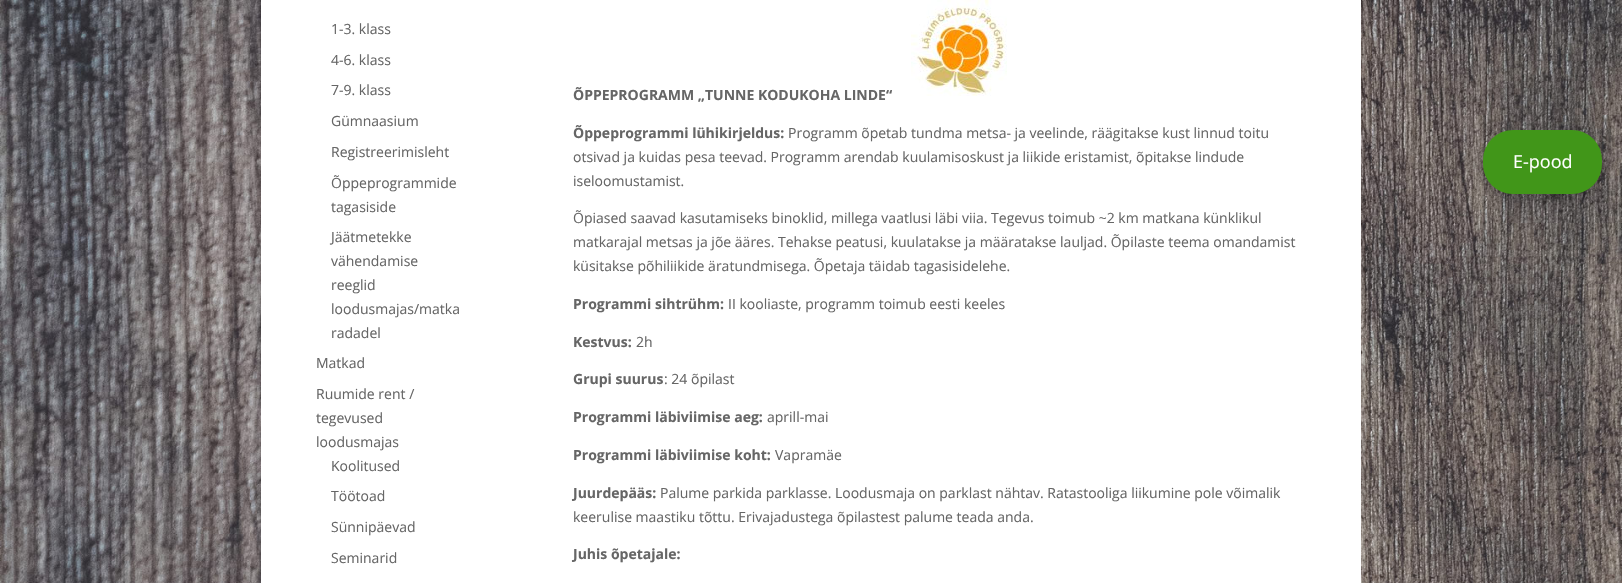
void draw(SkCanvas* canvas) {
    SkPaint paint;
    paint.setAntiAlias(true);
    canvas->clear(0xFFFFFFFF);
    canvas->drawImageRect(SkImages::DeferredFromEncodedData(SkData::MakeFromFileName("img1.png")), SkRect::MakeXYWH(0, 0, 1622, 583), SkSamplingOptions());
    canvas->save();
    canvas->clipPath(SkPathBuilder(SkPathFillType::kEvenOdd).moveTo(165, 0).lineTo(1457, 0).lineTo(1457, 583).lineTo(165, 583).close().moveTo(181, -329).lineTo(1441, -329).lineTo(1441, 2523).lineTo(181, 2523).close().detach(), true);
    paint.setColor(0x33000000);
    paint.setMaskFilter(SkMaskFilter::MakeBlur(kNormal_SkBlurStyle, 5));
    canvas->drawRect(SkRect::MakeXYWH(181, -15, 1260, 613), paint);
    paint.setMaskFilter(nullptr);
    canvas->restore();
    paint.setColor(0xFFFFFFFF);
    canvas->drawRect(SkRect::MakeXYWH(261, 0, 1100, 583), paint);
    SkFont font1(fontMgr->matchFamilyStyle("Open Sans", SkFontStyle::Normal()), 14);
    font1.setSubpixel(true);
    paint.setColor(0xFF666666);
    canvas->drawString("1-3. klass", 331, 34, font1, paint);
    canvas->drawString("4-6. klass", 331, 65, font1, paint);
    canvas->drawString("7-9. klass", 331, 95, font1, paint);
    canvas->drawString("Gümnaasium", 331, 126, font1, paint);
    canvas->drawString("Registreerimisleht", 331, 157, font1, paint);
    canvas->drawString("Õppeprogrammide", 331, 188, font1, paint);
    canvas->drawString("tagasiside", 331, 212, font1, paint);
    canvas->drawString("Jäätmetekke", 331, 242, font1, paint);
    canvas->drawString("vähendamise", 331, 266, font1, paint);
    canvas->drawString("reeglid", 331, 290, font1, paint);
    canvas->drawString("loodusmajas/matka", 331, 314, font1, paint);
    canvas->drawString("radadel", 331, 338, font1, paint);
    canvas->drawString("Matkad", 316, 368, font1, paint);
    canvas->drawString("Ruumide rent /", 316, 399, font1, paint);
    canvas->drawString("tegevused", 316, 423, font1, paint);
    canvas->drawString("loodusmajas", 316, 447, font1, paint);
    canvas->drawString("Koolitused", 331, 471, font1, paint);
    canvas->drawString("Töötoad", 331, 501, font1, paint);
    canvas->drawString("Sünnipäevad", 331, 532, font1, paint);
    canvas->drawString("Seminarid", 331, 563, font1, paint);
    SkFont font2(fontMgr->matchFamilyStyle("Open Sans", SkFontStyle::Bold()), 14);
    font2.setSubpixel(true);
    canvas->drawString("ÕPPEPROGRAMM „TUNNE KODUKOHA LINDE“", 573, 100, font2, paint);
    canvas->drawImageRect(SkImages::DeferredFromEncodedData(SkData::MakeFromFileName("img2.png")), SkRect::MakeXYWH(911, 0, 96, 96), SkSamplingOptions());
    canvas->drawString("Õppeprogrammi lühikirjeldus:", 573, 138, font2, paint);
    canvas->drawString("Programm õpetab tundma metsa- ja veelinde, räägitakse kust linnud toitu", 788, 138, font1, paint);
    canvas->drawString("otsivad ja kuidas pesa teevad. Programm arendab kuulamisoskust ja liikide eristamist, õpitakse lindude", 573, 162, font1, paint);
    canvas->drawString("iseloomustamist.", 573, 186, font1, paint);
    canvas->drawString("Õpiased saavad kasutamiseks binoklid, millega vaatlusi läbi viia. Tegevus toimub ~2 km matkana künklikul", 573, 223, font1, paint);
    canvas->drawString("matkarajal metsas ja jõe ääres. Tehakse peatusi, kuulatakse ja määratakse lauljad. Õpilaste teema omandamist", 573, 247, font1, paint);
    canvas->drawString("küsitakse põhiliikide äratundmisega. Õpetaja täidab tagasisidelehe.", 573, 271, font1, paint);
    canvas->drawString("Programmi sihtrühm:", 573, 309, font2, paint);
    canvas->drawString("II kooliaste, programm toimub eesti keeles", 728, 309, font1, paint);
    canvas->drawString("Kestvus:", 573, 347, font2, paint);
    canvas->drawString("2h", 636, 347, font1, paint);
    canvas->drawString("Grupi suurus", 573, 384, font2, paint);
    canvas->drawString(": 24 õpilast", 664, 384, font1, paint);
    canvas->drawString("Programmi läbiviimise aeg:", 573, 422, font2, paint);
    canvas->drawString("aprill-mai", 767, 422, font1, paint);
    canvas->drawString("Programmi läbiviimise koht:", 573, 460, font2, paint);
    canvas->drawString("Vapramäe", 775, 460, font1, paint);
    canvas->drawString("Juurdepääs:", 573, 498, font2, paint);
    canvas->drawString("Palume parkida parklasse. Loodusmaja on parklast nähtav. Ratastooliga liikumine pole võimalik", 660, 498, font1, paint);
    canvas->drawString("keerulise maastiku tõttu. Erivajadustega õpilastest palume teada anda.", 573, 522, font1, paint);
    canvas->drawString("Juhis õpetajale:", 573, 559, font2, paint);
    paint.setColor(0x33000000);
    paint.setMaskFilter(SkMaskFilter::MakeBlur(kNormal_SkBlurStyle, 5));
    canvas->drawRoundRect(SkRect::MakeXYWH(1483, 135, 119, 64), 30, 30, paint);
    paint.setMaskFilter(nullptr);
    paint.setColor(0xFF419619);
    canvas->drawRoundRect(SkRect::MakeXYWH(1483, 130, 119, 64), 30, 30, paint);
    SkFont font3(fontMgr->matchFamilyStyle("Open Sans", SkFontStyle::Normal()), 18);
    font3.setSubpixel(true);
    paint.setColor(0xFFFFFFFF);
    canvas->drawString("E-pood", 1513, 168, font3, paint);
}
